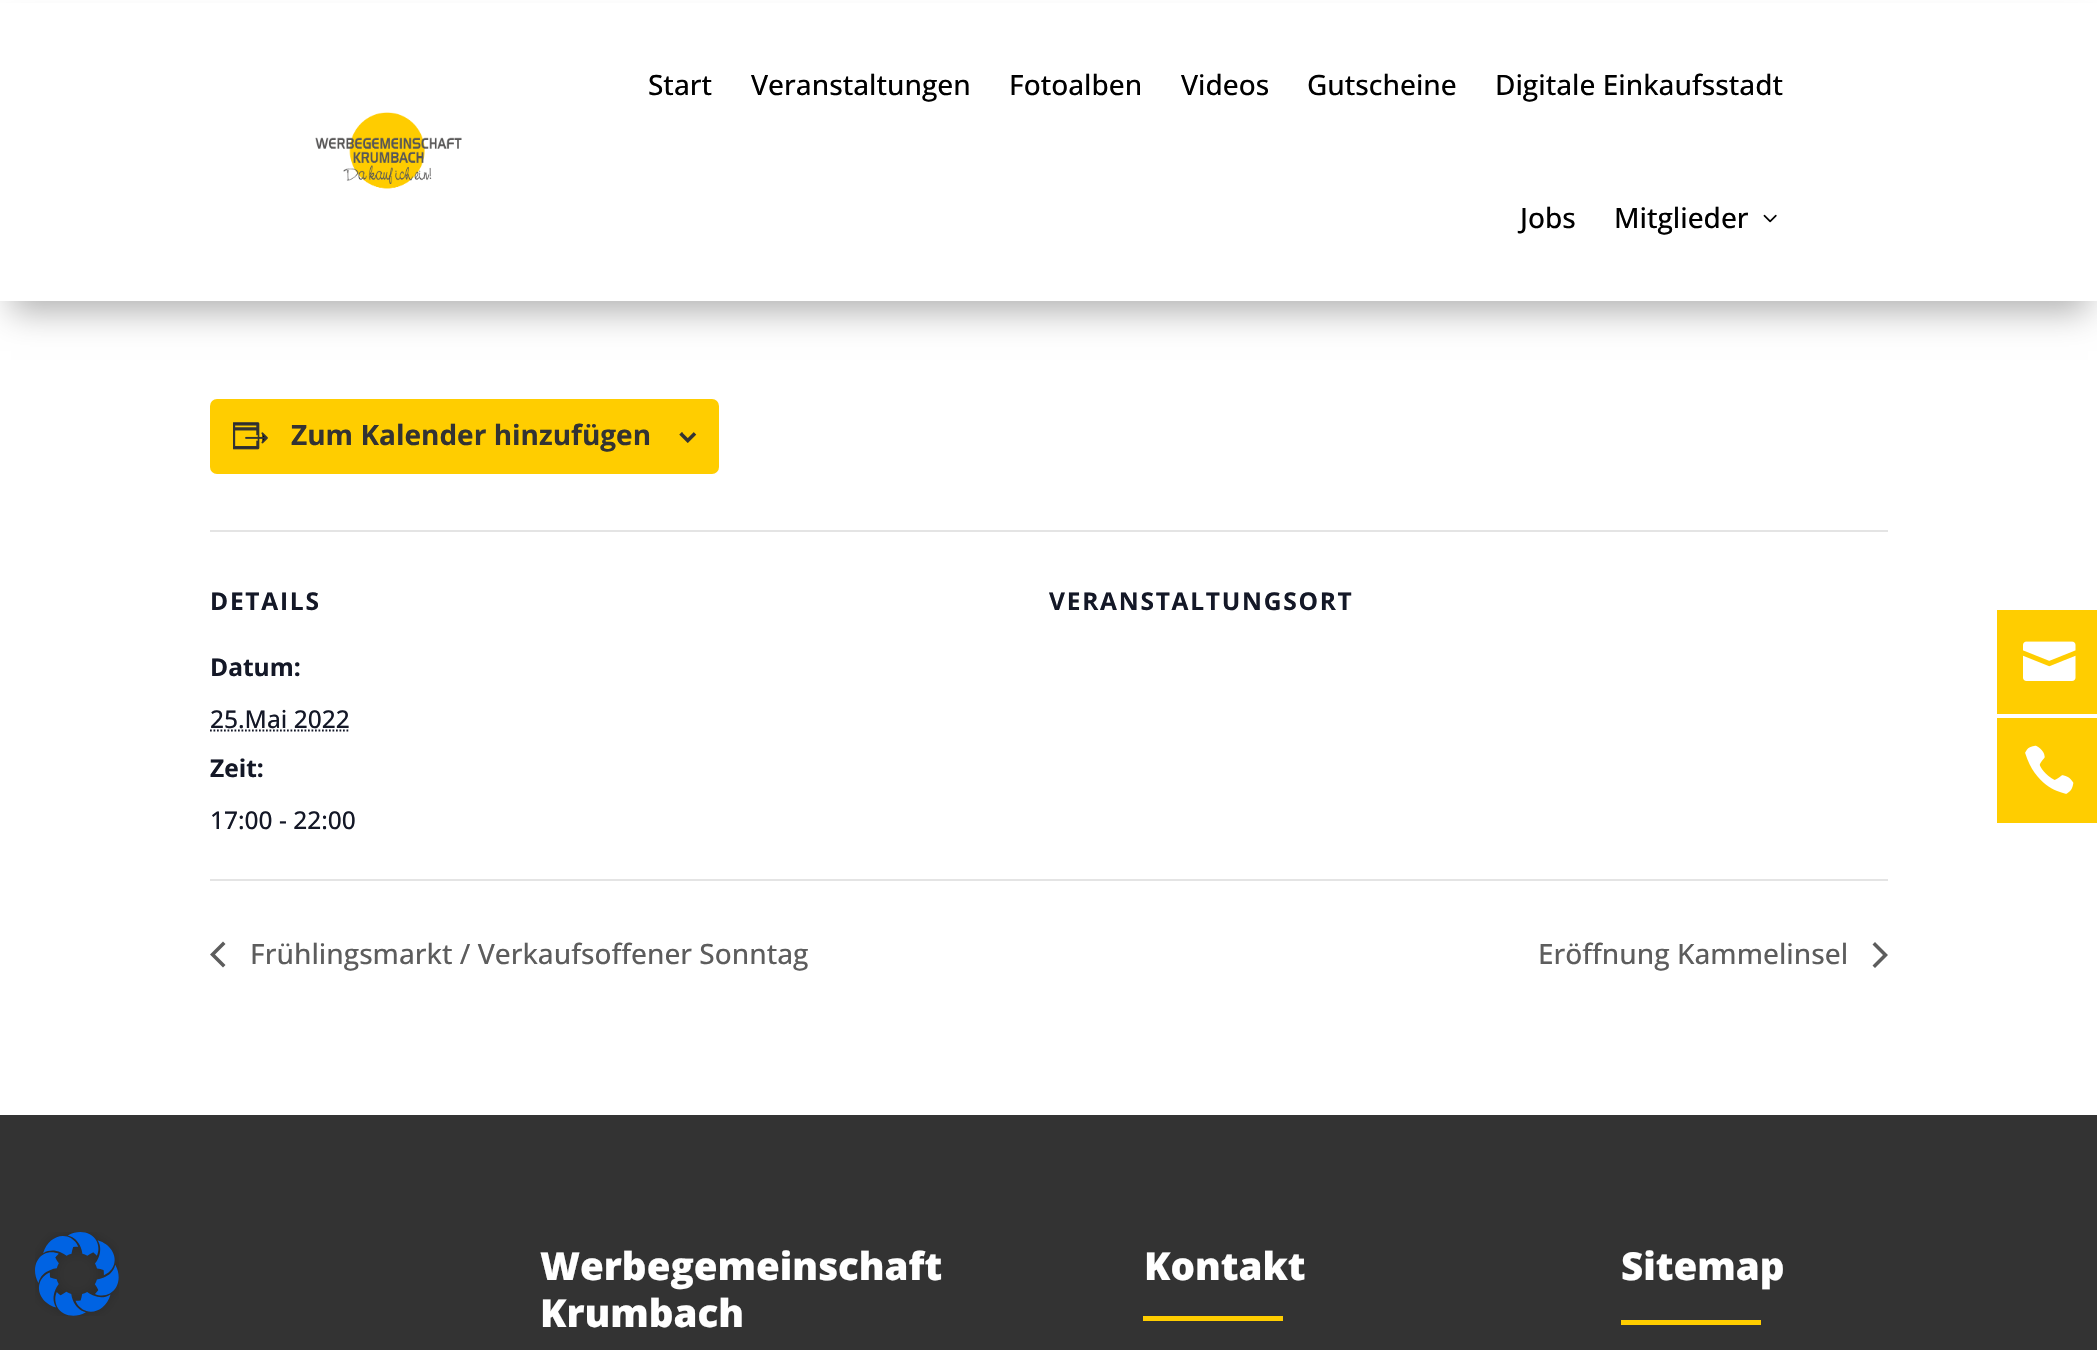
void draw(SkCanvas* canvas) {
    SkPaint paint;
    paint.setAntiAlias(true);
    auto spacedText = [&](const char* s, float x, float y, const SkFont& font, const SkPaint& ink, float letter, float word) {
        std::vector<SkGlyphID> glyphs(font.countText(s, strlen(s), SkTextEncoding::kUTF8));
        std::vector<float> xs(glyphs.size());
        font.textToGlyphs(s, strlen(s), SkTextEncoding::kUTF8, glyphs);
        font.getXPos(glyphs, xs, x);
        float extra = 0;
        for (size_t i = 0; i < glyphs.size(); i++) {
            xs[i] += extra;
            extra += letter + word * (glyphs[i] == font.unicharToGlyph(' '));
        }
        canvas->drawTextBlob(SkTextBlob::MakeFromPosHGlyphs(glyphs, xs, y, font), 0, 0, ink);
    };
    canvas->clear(0xFFFFFFFF);
    paint.setColor(0xFF333333);
    canvas->drawRect(SkRect::MakeXYWH(0, 1115, 2097, 235), paint);
    canvas->drawImageRect(SkImages::DeferredFromEncodedData(SkData::MakeFromFileName("img1.png")), SkRect::MakeXYWH(35, 1232, 84, 84), SkSamplingOptions());
    paint.setColor(0x4D000000);
    paint.setMaskFilter(SkMaskFilter::MakeBlur(kNormal_SkBlurStyle, 16));
    canvas->drawRect(SkRect::MakeXYWH(11, 32, 2077, 280), paint);
    paint.setMaskFilter(nullptr);
    paint.setColor(0xFFFFFFFF);
    canvas->drawRect(SkRect::MakeXYWH(0, 3, 2097, 298), paint);
    canvas->drawImageRect(SkImages::DeferredFromEncodedData(SkData::MakeFromFileName("img2.png")), SkRect::MakeXYWH(315, 112, 147, 77), SkSamplingOptions());
    SkFont font1(fontMgr->matchFamilyStyle("Open Sans", SkFontStyle(500, SkFontStyle::kNormal_Width, SkFontStyle::kUpright_Slant)), 28);
    font1.setSubpixel(true);
    paint.setColor(0xFF000000);
    canvas->drawString("Start", 648, 95, font1, paint);
    canvas->drawString("Veranstaltungen", 751, 95, font1, paint);
    canvas->drawString("Fotoalben", 1009, 95, font1, paint);
    canvas->drawString("Videos", 1181, 95, font1, paint);
    canvas->drawString("Gutscheine", 1307, 95, font1, paint);
    canvas->drawString("Digitale Einkaufsstadt", 1495, 95, font1, paint);
    canvas->drawString("Jobs", 1520, 228, font1, paint);
    canvas->drawString("Mitglieder", 1614, 228, font1, paint);
    canvas->drawImageRect(SkImages::DeferredFromEncodedData(SkData::MakeFromFileName("img3.png")), SkRect::MakeXYWH(1763, 214, 14, 9), SkSamplingOptions());
    paint.setColor(0xFFFFCD00);
    canvas->drawRoundRect(SkRect::MakeXYWH(210, 399, 509, 75), 7, 7, paint);
    canvas->drawImageRect(SkImages::DeferredFromEncodedData(SkData::MakeFromFileName("img4.png")), SkRect::MakeXYWH(233, 422, 35, 28), SkSamplingOptions());
    SkFont font2(fontMgr->matchFamilyStyle("Open Sans", SkFontStyle::Bold()), 28);
    font2.setSubpixel(true);
    paint.setColor(0xFF333333);
    canvas->drawString("Zum Kalender hinzufügen", 291, 445, font2, paint);
    canvas->drawImageRect(SkImages::DeferredFromEncodedData(SkData::MakeFromFileName("img5.png")), SkRect::MakeXYWH(679, 432, 18, 11), SkSamplingOptions());
    paint.setColor(0xFFE4E4E4);
    canvas->drawRect(SkRect::MakeXYWH(210, 530, 1678, 2), paint);
    SkFont font3(fontMgr->matchFamilyStyle("Open Sans", SkFontStyle::Bold()), 24.5f);
    font3.setSubpixel(true);
    paint.setColor(0xFF141827);
    spacedText("DETAILS", 210, 610, font3, paint, 1.75f, 0);
    canvas->drawString("Datum:", 210, 676, font3, paint);
    SkFont font4(fontMgr->matchFamilyStyle("Open Sans", SkFontStyle(500, SkFontStyle::kNormal_Width, SkFontStyle::kUpright_Slant)), 24.5f);
    font4.setSubpixel(true);
    canvas->drawString("25.Mai 2022", 210, 728, font4, paint);
    paint.setStyle(SkPaint::kStroke_Style);
    paint.setStrokeWidth(1.8f);
    paint.setPathEffect(SkDashPathEffect::Make({{1.75f, 1.75f}}, 0));
    canvas->drawPath(SkPathBuilder().moveTo(210, 730.5f).lineTo(349.5f, 730.5f).detach(), paint);
    paint.setPathEffect(nullptr);
    paint.setStyle(SkPaint::kFill_Style);
    canvas->drawString("Zeit:", 210, 777, font3, paint);
    canvas->drawString("17:00 - 22:00", 210, 829, font4, paint);
    spacedText("VERANSTALTUNGSORT", 1049, 610, font3, paint, 1.75f, 0);
    paint.setColor(0xFFE4E4E4);
    canvas->drawRect(SkRect::MakeXYWH(210, 879, 1678, 2), paint);
    paint.setColor(0xFF5D5D5D);
    canvas->drawPath(SkPathBuilder().moveTo(225.5f, 965).lineTo(223, 967.5f).lineTo(210, 954.5f).lineTo(223, 941.5f).lineTo(225.5f, 944).lineTo(215, 954.5f).close().detach(), paint);
    canvas->drawString("Frühlingsmarkt / Verkaufsoffener Sonntag", 250, 964, font1, paint);
    canvas->drawString("Eröffnung Kammelinsel", 1538, 964, font1, paint);
    canvas->drawPath(SkPathBuilder().moveTo(1872.5f, 944.5f).lineTo(1875, 942).lineTo(1888, 955).lineTo(1875, 968).lineTo(1872.5f, 965.5f).lineTo(1883, 955).close().detach(), paint);
    paint.setColor(0xFFFFCD00);
    canvas->drawRect(SkRect::MakeXYWH(1997, 610, 100, 104), paint);
    canvas->drawImageRect(SkImages::DeferredFromEncodedData(SkData::MakeFromFileName("img6.png")), SkRect::MakeXYWH(2023, 641, 53, 40), SkSamplingOptions());
    canvas->drawRect(SkRect::MakeXYWH(1997, 718, 100, 105), paint);
    canvas->drawImageRect(SkImages::DeferredFromEncodedData(SkData::MakeFromFileName("img7.png")), SkRect::MakeXYWH(2025, 745, 49, 49), SkSamplingOptions());
    SkFont font5(fontMgr->matchFamilyStyle("Open Sans", SkFontStyle(800, SkFontStyle::kNormal_Width, SkFontStyle::kUpright_Slant)), 38.5f);
    font5.setSubpixel(true);
    paint.setColor(0xFFFFFFFF);
    canvas->drawString("Werbegemeinschaft", 540, 1280, font5, paint);
    canvas->drawString("Krumbach", 540, 1327, font5, paint);
    canvas->drawString("Kontakt", 1144, 1280, font5, paint);
    paint.setColor(0xFFFFCD00);
    canvas->drawRect(SkRect::MakeXYWH(1143, 1316, 140, 5), paint);
    paint.setColor(0xFFFFFFFF);
    canvas->drawString("Sitemap", 1621, 1280, font5, paint);
    paint.setColor(0xFFFFCD00);
    canvas->drawRect(SkRect::MakeXYWH(1621, 1320, 140, 5), paint);
}
